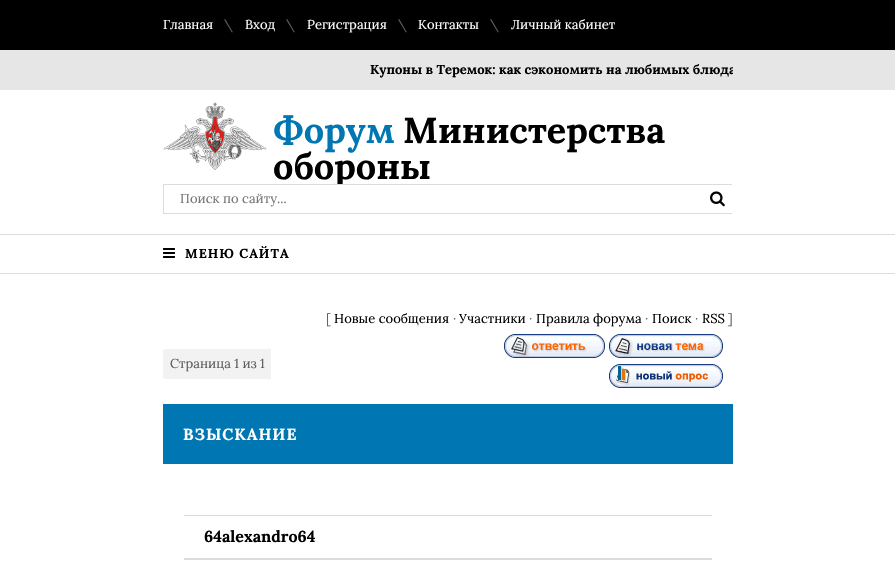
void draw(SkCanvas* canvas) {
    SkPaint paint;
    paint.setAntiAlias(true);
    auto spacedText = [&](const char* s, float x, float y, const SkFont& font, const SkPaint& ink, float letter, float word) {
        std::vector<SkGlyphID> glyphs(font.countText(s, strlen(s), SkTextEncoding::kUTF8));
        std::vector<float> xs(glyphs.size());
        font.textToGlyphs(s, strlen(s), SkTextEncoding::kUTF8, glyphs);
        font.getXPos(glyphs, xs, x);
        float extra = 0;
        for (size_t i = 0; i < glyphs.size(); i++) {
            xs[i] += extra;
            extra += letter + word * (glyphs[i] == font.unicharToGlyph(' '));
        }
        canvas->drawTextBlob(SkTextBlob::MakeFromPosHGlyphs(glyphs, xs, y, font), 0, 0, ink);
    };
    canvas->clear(0xFFFFFFFF);
    paint.setColor(0xFF000000);
    canvas->drawRect(SkRect::MakeXYWH(0, 0, 895, 50), paint);
    SkFont font1(fontMgr->matchFamilyStyle("Lora", SkFontStyle::Normal()), 13);
    font1.setSubpixel(true);
    paint.setColor(0xFFFFFFFF);
    canvas->drawString("Главная", 163, 29, font1, paint);
    paint.setColor(0xFF5C5C5C);
    canvas->drawString("\\", 224, 29, font1, paint);
    paint.setColor(0xFFFFFFFF);
    canvas->drawString("Вход", 245, 29, font1, paint);
    paint.setColor(0xFF5C5C5C);
    canvas->drawString("\\", 286, 29, font1, paint);
    paint.setColor(0xFFFFFFFF);
    canvas->drawString("Регистрация", 307, 29, font1, paint);
    paint.setColor(0xFF5C5C5C);
    canvas->drawString("\\", 398, 29, font1, paint);
    paint.setColor(0xFFFFFFFF);
    canvas->drawString("Контакты", 418, 29, font1, paint);
    paint.setColor(0xFF5C5C5C);
    canvas->drawString("\\", 490, 29, font1, paint);
    paint.setColor(0xFFFFFFFF);
    canvas->drawString("Личный кабинет", 511, 29, font1, paint);
    paint.setColor(0xFFE6E6E6);
    canvas->drawRect(SkRect::MakeXYWH(0, 50, 895, 40), paint);
    canvas->save();
    canvas->clipRect(SkRect::MakeXYWH(163, 50, 570, 40));
    SkFont font2(fontMgr->matchFamilyStyle("Lora", SkFontStyle::Bold()), 13);
    font2.setSubpixel(true);
    paint.setColor(0xFF000000);
    canvas->drawString("Купоны в Теремок: как сэкономить на любимых блюда", 370, 74, font2, paint);
    canvas->restore();
    canvas->drawImageRect(SkImages::DeferredFromEncodedData(SkData::MakeFromFileName("img1.png")), SkRect::MakeXYWH(163, 102, 104, 68), SkSamplingOptions());
    SkFont font3(fontMgr->matchFamilyStyle("Lora", SkFontStyle::Bold()), 36);
    font3.setSubpixel(true);
    paint.setColor(0xFF0077B3);
    canvas->drawString("Форум", 273, 143, font3, paint);
    paint.setColor(0xFF000000);
    canvas->drawString("Министерства", 403, 143, font3, paint);
    canvas->drawString("обороны", 273, 179, font3, paint);
    paint.setColor(0xFFFFFFFF);
    canvas->drawRect(SkRect::MakeXYWH(334, 185, 11, 4), paint);
    paint.setStyle(SkPaint::kStroke_Style);
    paint.setStrokeWidth(1);
    paint.setColor(0xFFDCDCDC);
    canvas->drawRect(SkRect::MakeXYWH(163.5f, 184.5f, 568, 29), paint);
    paint.setStyle(SkPaint::kFill_Style);
    paint.setColor(0xFF757575);
    canvas->drawString("Поиск по сайту...", 180, 203, font1, paint);
    paint.setColor(0xFFFFFFFF);
    canvas->drawRect(SkRect::MakeXYWH(731, 185, 1, 28), paint);
    canvas->drawImageRect(SkImages::DeferredFromEncodedData(SkData::MakeFromFileName("img2.png")), SkRect::MakeXYWH(710, 191, 15, 16), SkSamplingOptions());
    paint.setColor(0xFFDCDCDC);
    canvas->drawRect(SkRect::MakeXYWH(0, 273, 895, 1), paint);
    canvas->drawRect(SkRect::MakeXYWH(0, 234, 895, 1), paint);
    canvas->drawImageRect(SkImages::DeferredFromEncodedData(SkData::MakeFromFileName("img3.png")), SkRect::MakeXYWH(163, 248, 12, 10), SkSamplingOptions());
    paint.setColor(0xFF000000);
    spacedText("МЕНЮ САЙТА", 185, 258, font2, paint, 1, 0);
    paint.setColor(0xFF5C5C5C);
    canvas->drawString("[", 326, 323, font1, paint);
    paint.setColor(0xFF000000);
    canvas->drawString("Новые сообщения", 334, 323, font1, paint);
    paint.setColor(0xFF5C5C5C);
    canvas->drawString("·", 453, 323, font1, paint);
    paint.setColor(0xFF000000);
    canvas->drawString("Участники", 459, 323, font1, paint);
    paint.setColor(0xFF5C5C5C);
    canvas->drawString("·", 529, 323, font1, paint);
    paint.setColor(0xFF000000);
    canvas->drawString("Правила форума", 536, 323, font1, paint);
    paint.setColor(0xFF5C5C5C);
    canvas->drawString("·", 645, 323, font1, paint);
    paint.setColor(0xFF000000);
    canvas->drawString("Поиск", 652, 323, font1, paint);
    paint.setColor(0xFF5C5C5C);
    canvas->drawString("·", 695, 323, font1, paint);
    paint.setColor(0xFF000000);
    canvas->drawString("RSS", 702, 323, font1, paint);
    paint.setColor(0xFF5C5C5C);
    canvas->drawString("]", 728, 323, font1, paint);
    paint.setColor(0xFFF2F2F2);
    canvas->drawPath(SkPathBuilder().moveTo(165, 349).lineTo(271, 349).lineTo(271, 379).lineTo(165, 379).cubicTo(164, 379, 163, 378, 163, 377).lineTo(163, 351).cubicTo(163, 350, 164, 349, 165, 349).close().detach(), paint);
    paint.setColor(0xFF5C5C5C);
    canvas->drawString("Страница 1 из 1", 170, 368, font1, paint);
    canvas->drawImageRect(SkImages::DeferredFromEncodedData(SkData::MakeFromFileName("img4.png")), SkRect::MakeXYWH(504, 334, 101, 24), SkSamplingOptions());
    canvas->drawImageRect(SkImages::DeferredFromEncodedData(SkData::MakeFromFileName("img5.png")), SkRect::MakeXYWH(609, 334, 114, 24), SkSamplingOptions());
    canvas->drawImageRect(SkImages::DeferredFromEncodedData(SkData::MakeFromFileName("img6.png")), SkRect::MakeXYWH(609, 364, 114, 24), SkSamplingOptions());
    paint.setColor(0xFF0077B3);
    canvas->drawRect(SkRect::MakeXYWH(163, 404, 570, 60), paint);
    SkFont font4(fontMgr->matchFamilyStyle("Lora", SkFontStyle::Bold()), 16);
    font4.setSubpixel(true);
    paint.setColor(0xFFFFFFFF);
    spacedText("ВЗЫСКАНИЕ", 183, 440, font4, paint, 1, 0);
    paint.setColor(0xFFDCDCDC);
    canvas->drawRect(SkRect::MakeXYWH(184, 515, 528, 1), paint);
    canvas->drawRect(SkRect::MakeXYWH(184, 558, 528, 2), paint);
    paint.setColor(0xFF000000);
    canvas->drawString("64alexandro64", 204, 542, font4, paint);
}
